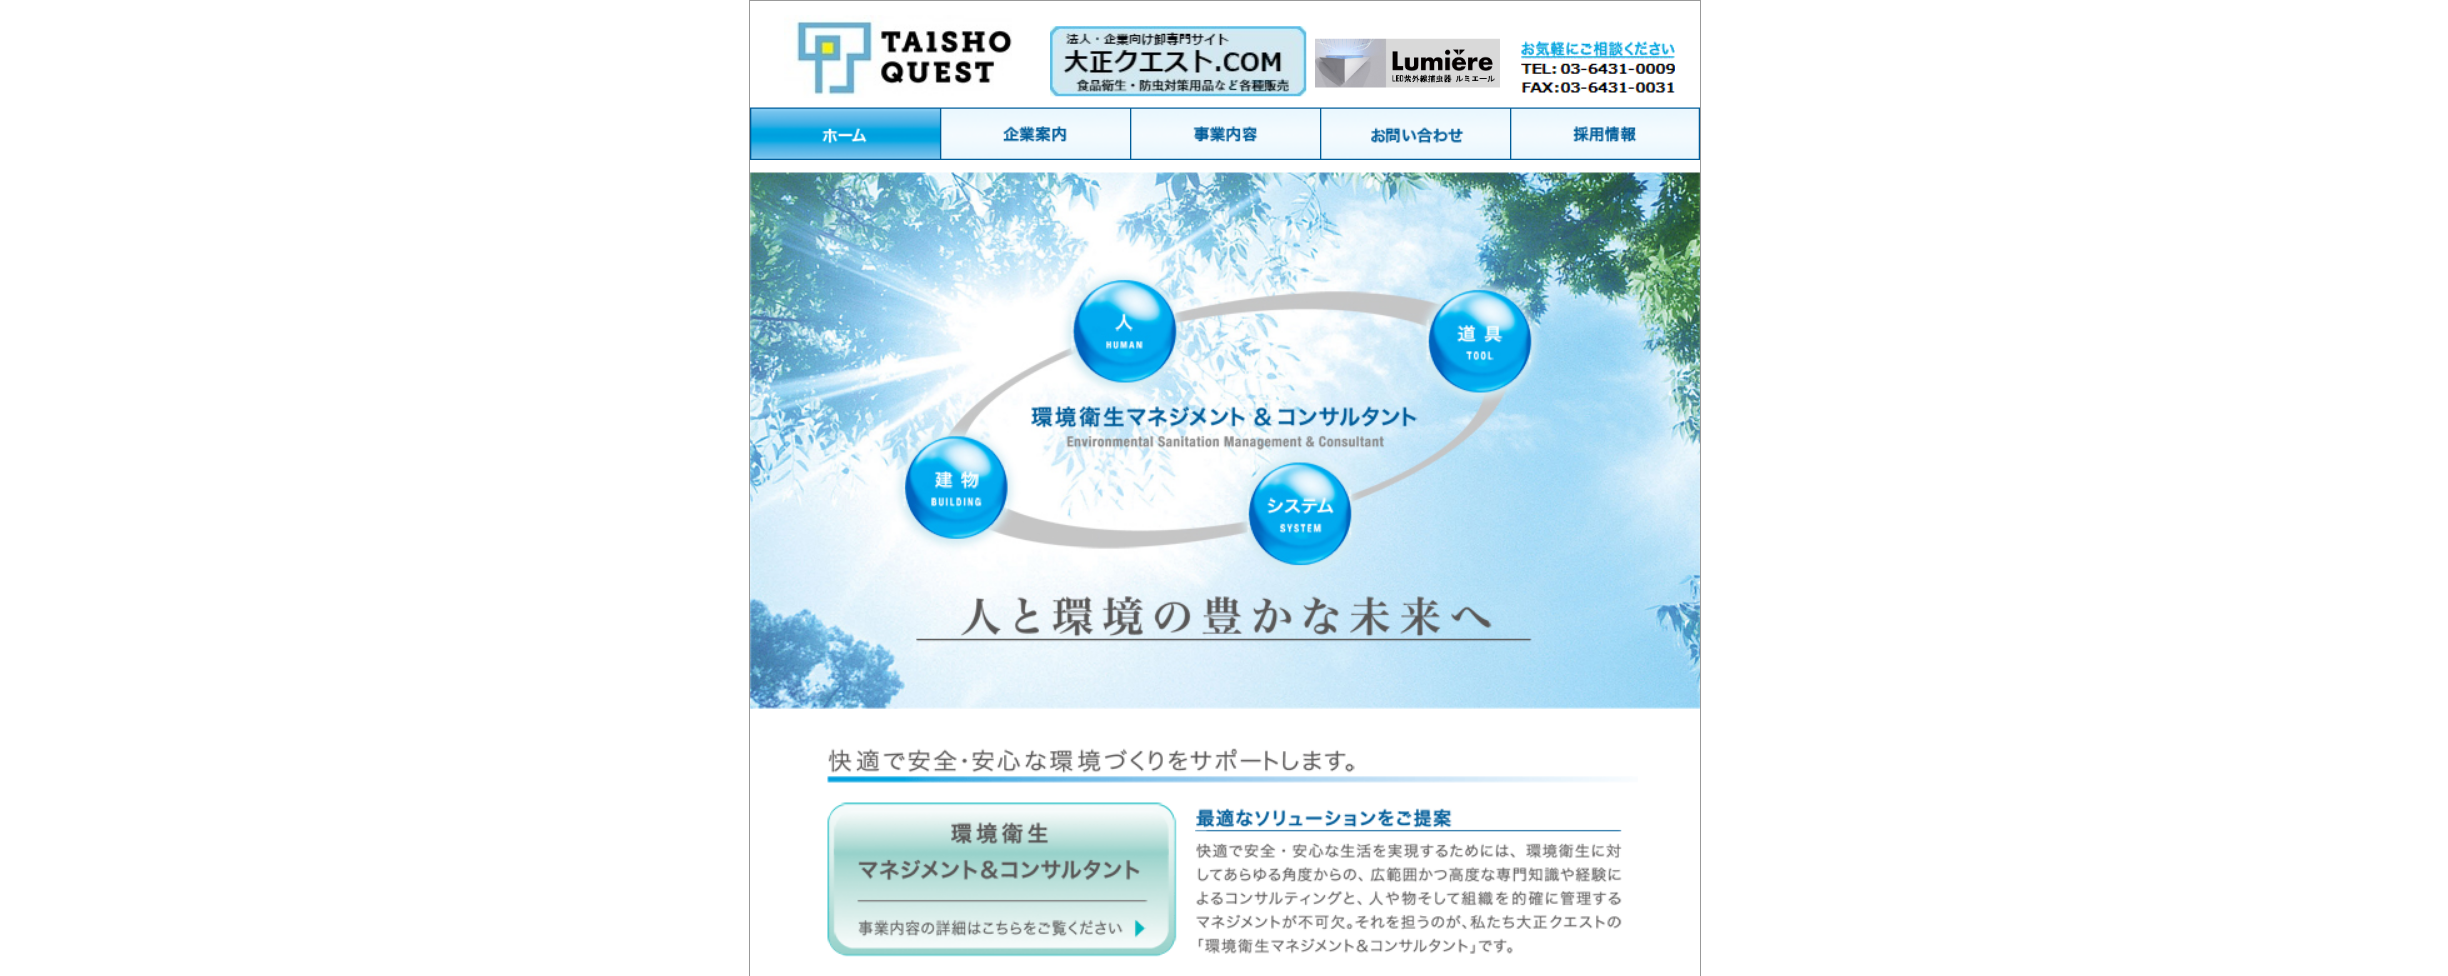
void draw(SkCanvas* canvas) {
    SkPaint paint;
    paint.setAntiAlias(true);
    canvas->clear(0xFFFFFFFF);
    paint.setStyle(SkPaint::kStroke_Style);
    paint.setStrokeWidth(1);
    paint.setColor(0xFF999999);
    canvas->drawRect(SkRect::MakeXYWH(749.5f, 0.5f, 951, 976), paint);
    canvas->drawImageRect(SkImages::DeferredFromEncodedData(SkData::MakeFromFileName("img1.png")), SkRect::MakeXYWH(784, 15, 228, 83), SkSamplingOptions());
    canvas->drawImageRect(SkImages::DeferredFromEncodedData(SkData::MakeFromFileName("img2.png")), SkRect::MakeXYWH(1050, 26, 257, 71), SkSamplingOptions());
    canvas->drawImageRect(SkImages::DeferredFromEncodedData(SkData::MakeFromFileName("img3.png")), SkRect::MakeXYWH(1315, 38, 185, 50), SkSamplingOptions());
    canvas->drawImageRect(SkImages::DeferredFromEncodedData(SkData::MakeFromFileName("img4.png")), SkRect::MakeXYWH(1521, 41, 154, 52), SkSamplingOptions());
    canvas->drawImageRect(SkImages::DeferredFromEncodedData(SkData::MakeFromFileName("img5.png")), SkRect::MakeXYWH(750, 107, 190, 53), SkSamplingOptions());
    canvas->drawImageRect(SkImages::DeferredFromEncodedData(SkData::MakeFromFileName("img6.png")), SkRect::MakeXYWH(940, 107, 190, 53), SkSamplingOptions());
    canvas->drawImageRect(SkImages::DeferredFromEncodedData(SkData::MakeFromFileName("img7.png")), SkRect::MakeXYWH(1130, 107, 190, 53), SkSamplingOptions());
    canvas->drawImageRect(SkImages::DeferredFromEncodedData(SkData::MakeFromFileName("img8.png")), SkRect::MakeXYWH(1320, 107, 190, 53), SkSamplingOptions());
    canvas->drawImageRect(SkImages::DeferredFromEncodedData(SkData::MakeFromFileName("img9.png")), SkRect::MakeXYWH(1510, 107, 190, 53), SkSamplingOptions());
    canvas->drawImageRect(SkImages::DeferredFromEncodedData(SkData::MakeFromFileName("img10.png")), SkRect::MakeXYWH(750, 172, 950, 537), SkSamplingOptions());
    canvas->drawImageRect(SkImages::DeferredFromEncodedData(SkData::MakeFromFileName("img11.png")), SkRect::MakeXYWH(827, 748, 811, 35), SkSamplingOptions());
    canvas->drawImageRect(SkImages::DeferredFromEncodedData(SkData::MakeFromFileName("img12.png")), SkRect::MakeXYWH(827, 802, 350, 155), SkSamplingOptions());
    canvas->drawImageRect(SkImages::DeferredFromEncodedData(SkData::MakeFromFileName("img13.png")), SkRect::MakeXYWH(1195, 808, 427, 146), SkSamplingOptions());
}
